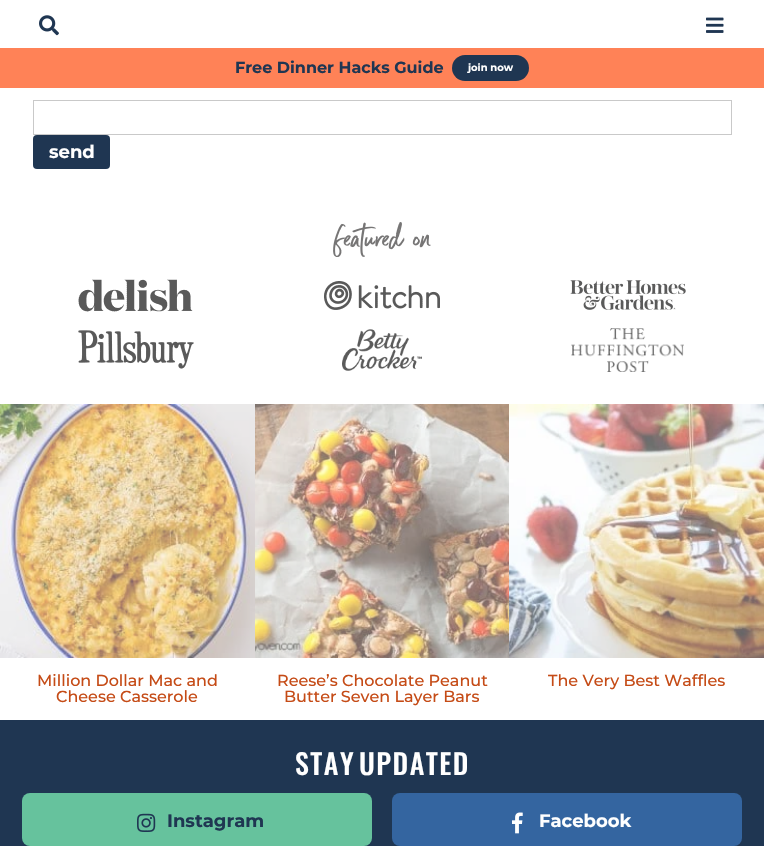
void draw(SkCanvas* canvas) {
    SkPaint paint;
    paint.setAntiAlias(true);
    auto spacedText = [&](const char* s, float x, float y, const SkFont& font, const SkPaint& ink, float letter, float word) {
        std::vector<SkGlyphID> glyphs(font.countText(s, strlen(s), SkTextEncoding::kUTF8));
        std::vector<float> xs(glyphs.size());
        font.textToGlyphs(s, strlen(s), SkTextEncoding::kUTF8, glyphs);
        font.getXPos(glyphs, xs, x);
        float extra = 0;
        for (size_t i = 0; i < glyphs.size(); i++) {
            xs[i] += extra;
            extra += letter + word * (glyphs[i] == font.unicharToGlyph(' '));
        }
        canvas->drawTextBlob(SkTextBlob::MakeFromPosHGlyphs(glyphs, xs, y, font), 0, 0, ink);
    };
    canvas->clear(0xFFFFFFFF);
    canvas->drawImageRect(SkImages::DeferredFromEncodedData(SkData::MakeFromFileName("img1.png")), SkRect::MakeXYWH(39, 15, 20, 21), SkSamplingOptions());
    canvas->drawImageRect(SkImages::DeferredFromEncodedData(SkData::MakeFromFileName("img2.png")), SkRect::MakeXYWH(706, 17, 18, 16), SkSamplingOptions());
    paint.setColor(0xFFFF8257);
    canvas->drawRect(SkRect::MakeXYWH(0, 48, 764, 40), paint);
    SkFont font1(fontMgr->matchFamilyStyle("Montserrat", SkFontStyle::Bold()), 16);
    font1.setSubpixel(true);
    paint.setColor(0xFF1F3652);
    canvas->drawString("Free Dinner Hacks Guide", 235, 73, font1, paint);
    canvas->drawRoundRect(SkRect::MakeXYWH(452, 55, 77, 26), 13, 13, paint);
    SkFont font2(fontMgr->matchFamilyStyle("Montserrat", SkFontStyle::Bold()), 10);
    font2.setSubpixel(true);
    paint.setColor(0xFFFFFFFF);
    canvas->drawString("join now", 468, 71, font2, paint);
    paint.setStyle(SkPaint::kStroke_Style);
    paint.setStrokeWidth(1);
    paint.setColor(0xFFC9C9C9);
    canvas->drawRect(SkRect::MakeXYWH(33.5f, 100.5f, 698, 34), paint);
    paint.setStyle(SkPaint::kFill_Style);
    paint.setColor(0xFF1F3652);
    canvas->drawRoundRect(SkRect::MakeXYWH(33, 135, 77, 34), 4, 4, paint);
    SkFont font3(fontMgr->matchFamilyStyle("Montserrat", SkFontStyle::Bold()), 18);
    font3.setSubpixel(true);
    paint.setColor(0xFFFFFFFF);
    canvas->drawString("send", 49, 158, font3, paint);
    canvas->drawImageRect(SkImages::DeferredFromEncodedData(SkData::MakeFromFileName("img3.png")), SkRect::MakeXYWH(333, 222, 98, 35), SkSamplingOptions());
    canvas->drawImageRect(SkImages::DeferredFromEncodedData(SkData::MakeFromFileName("img4.png")), SkRect::MakeXYWH(78, 279, 115, 33), SkSamplingOptions());
    canvas->drawImageRect(SkImages::DeferredFromEncodedData(SkData::MakeFromFileName("img5.png")), SkRect::MakeXYWH(324, 281, 116, 29), SkSamplingOptions());
    canvas->drawImageRect(SkImages::DeferredFromEncodedData(SkData::MakeFromFileName("img6.png")), SkRect::MakeXYWH(570, 280, 116, 30), SkSamplingOptions());
    canvas->drawImageRect(SkImages::DeferredFromEncodedData(SkData::MakeFromFileName("img7.png")), SkRect::MakeXYWH(78, 330, 116, 39), SkSamplingOptions());
    canvas->drawImageRect(SkImages::DeferredFromEncodedData(SkData::MakeFromFileName("img8.png")), SkRect::MakeXYWH(342, 329, 80, 42), SkSamplingOptions());
    canvas->drawImageRect(SkImages::DeferredFromEncodedData(SkData::MakeFromFileName("img9.png")), SkRect::MakeXYWH(571, 328, 113, 44), SkSamplingOptions());
    canvas->drawImageRect(SkImages::DeferredFromEncodedData(SkData::MakeFromFileName("img10.png")), SkRect::MakeXYWH(0, 404, 255, 254), SkSamplingOptions());
    SkFont font4(fontMgr->matchFamilyStyle("Montserrat", SkFontStyle(500, SkFontStyle::kNormal_Width, SkFontStyle::kUpright_Slant)), 16);
    font4.setSubpixel(true);
    paint.setColor(0xFFC54B16);
    canvas->drawString("Million Dollar Mac and", 37, 686, font4, paint);
    canvas->drawString("Cheese Casserole", 56, 702, font4, paint);
    canvas->drawImageRect(SkImages::DeferredFromEncodedData(SkData::MakeFromFileName("img11.png")), SkRect::MakeXYWH(255, 404, 254, 254), SkSamplingOptions());
    canvas->drawString("Reese’s Chocolate Peanut", 277, 686, font4, paint);
    canvas->drawString("Butter Seven Layer Bars", 284, 702, font4, paint);
    canvas->drawImageRect(SkImages::DeferredFromEncodedData(SkData::MakeFromFileName("img12.png")), SkRect::MakeXYWH(509, 404, 255, 254), SkSamplingOptions());
    canvas->drawString("The Very Best Waffles", 548, 686, font4, paint);
    paint.setColor(0xFF1F3652);
    canvas->drawRect(SkRect::MakeXYWH(0, 720, 764, 126), paint);
    SkFont font5(fontMgr->matchFamilyStyle("Oswald", SkFontStyle(500, SkFontStyle::kNormal_Width, SkFontStyle::kUpright_Slant)), 28);
    font5.setSubpixel(true);
    paint.setColor(0xFFFFFFFF);
    spacedText("STAY", 295, 775, font5, paint, 1.5f, 0);
    spacedText("UPDATED", 359, 775, font5, paint, 1.5f, 0);
    paint.setColor(0xFF66C29D);
    canvas->drawRoundRect(SkRect::MakeXYWH(22, 793, 350, 53), 8, 8, paint);
    canvas->drawImageRect(SkImages::DeferredFromEncodedData(SkData::MakeFromFileName("img13.png")), SkRect::MakeXYWH(137, 813, 19, 19), SkSamplingOptions());
    paint.setColor(0xFF1F3652);
    canvas->drawString("Instagram", 167, 827, font3, paint);
    paint.setColor(0xFF3465A0);
    canvas->drawRoundRect(SkRect::MakeXYWH(392, 793, 350, 53), 8, 8, paint);
    canvas->drawImageRect(SkImages::DeferredFromEncodedData(SkData::MakeFromFileName("img14.png")), SkRect::MakeXYWH(512, 812, 11, 22), SkSamplingOptions());
    paint.setColor(0xFFFFFFFF);
    canvas->drawString("Facebook", 539, 827, font3, paint);
}
